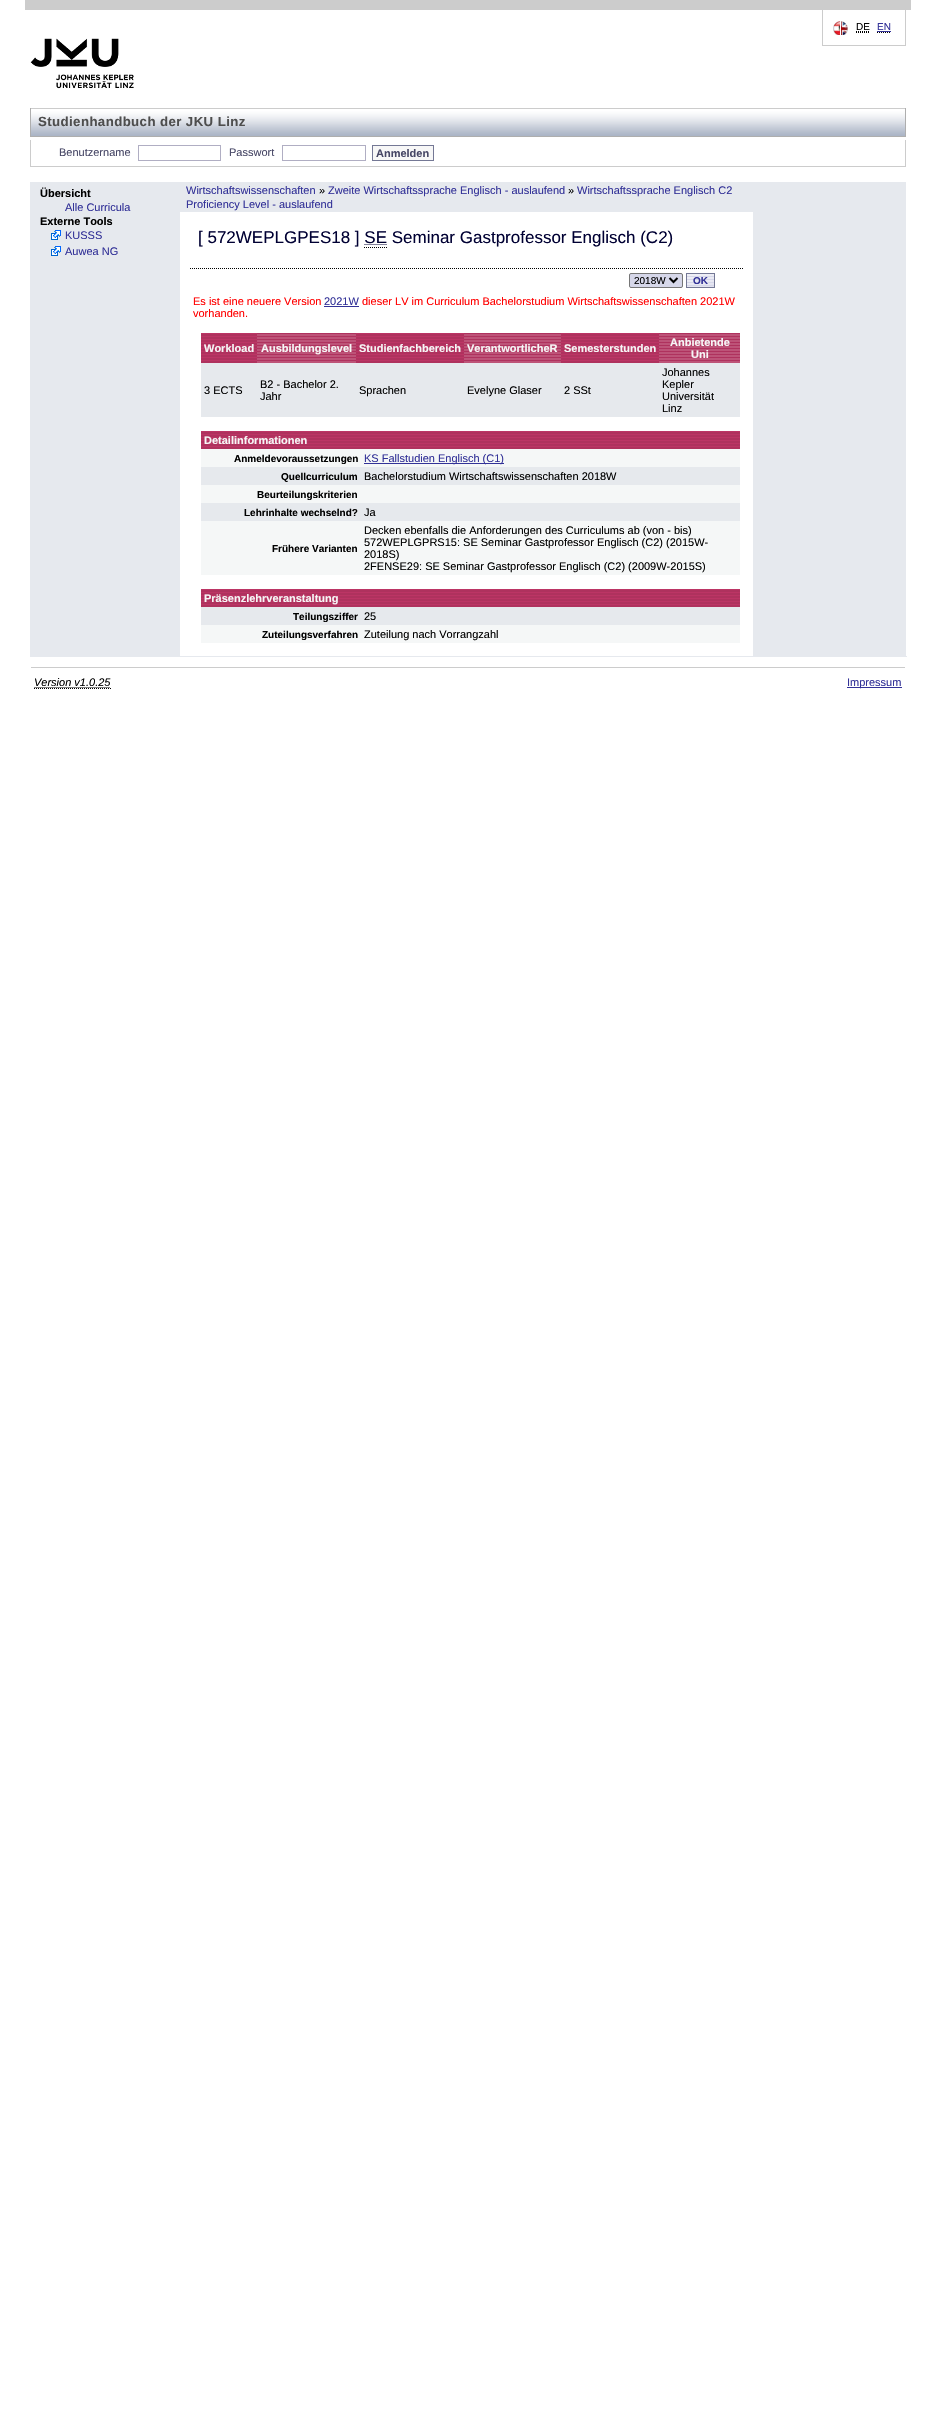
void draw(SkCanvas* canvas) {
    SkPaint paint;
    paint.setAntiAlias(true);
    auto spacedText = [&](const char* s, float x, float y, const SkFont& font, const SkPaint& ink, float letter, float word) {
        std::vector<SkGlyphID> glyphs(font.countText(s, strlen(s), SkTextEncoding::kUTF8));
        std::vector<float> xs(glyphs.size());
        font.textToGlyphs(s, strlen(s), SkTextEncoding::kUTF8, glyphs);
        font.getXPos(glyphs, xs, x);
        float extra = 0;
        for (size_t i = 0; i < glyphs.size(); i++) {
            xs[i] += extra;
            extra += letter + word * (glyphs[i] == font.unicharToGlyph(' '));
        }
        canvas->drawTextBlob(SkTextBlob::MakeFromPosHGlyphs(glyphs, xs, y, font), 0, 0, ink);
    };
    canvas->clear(0xFFFFFFFF);
    paint.setColor(0xFFCCCCCC);
    canvas->drawRect(SkRect::MakeXYWH(25, 0, 886, 10), paint);
    canvas->drawRect(SkRect::MakeXYWH(905, 10, 1, 36), paint);
    canvas->drawRect(SkRect::MakeXYWH(822, 45, 84, 1), paint);
    canvas->drawRect(SkRect::MakeXYWH(822, 10, 1, 36), paint);
    canvas->drawImageRect(SkImages::DeferredFromEncodedData(SkData::MakeFromFileName("img1.png")), SkRect::MakeXYWH(833, 21, 15, 14), SkSamplingOptions());
    SkFont font1(fontMgr->matchFamilyStyle("Liberation Sans", SkFontStyle::Normal()), 10);
    font1.setSubpixel(true);
    paint.setColor(0xFF000000);
    canvas->drawString("DE", 856, 30, font1, paint);
    paint.setStyle(SkPaint::kStroke_Style);
    paint.setStrokeWidth(1);
    paint.setPathEffect(SkDashPathEffect::Make({{1, 1}}, 0));
    canvas->drawPath(SkPathBuilder().moveTo(856, 32.5f).lineTo(869, 32.5f).moveTo(856, 31.5f).lineTo(869.5f, 31.5f).detach(), paint);
    paint.setPathEffect(nullptr);
    paint.setStyle(SkPaint::kFill_Style);
    paint.setColor(0xFF333298);
    canvas->drawString("EN", 877, 30, font1, paint);
    paint.setStyle(SkPaint::kStroke_Style);
    paint.setColor(0xFF000000);
    paint.setPathEffect(SkDashPathEffect::Make({{1, 1}}, 0));
    canvas->drawPath(SkPathBuilder().moveTo(877, 32.5f).lineTo(891, 32.5f).detach(), paint);
    paint.setPathEffect(nullptr);
    paint.setStyle(SkPaint::kFill_Style);
    paint.setColor(0xFF333298);
    canvas->drawRect(SkRect::MakeXYWH(877, 31, 14, 1), paint);
    canvas->drawImageRect(SkImages::DeferredFromEncodedData(SkData::MakeFromFileName("img2.png")), SkRect::MakeXYWH(30, 38, 104, 51), SkSamplingOptions());
    canvas->drawImageRect(SkImages::DeferredFromEncodedData(SkData::MakeFromFileName("img3.png")), SkRect::MakeXYWH(31, 108, 874, 28), SkSamplingOptions());
    paint.setColor(0xFFAEAEAE);
    canvas->drawRect(SkRect::MakeXYWH(905, 108, 1, 29), paint);
    canvas->drawRect(SkRect::MakeXYWH(30, 136, 876, 1), paint);
    canvas->drawRect(SkRect::MakeXYWH(30, 108, 1, 29), paint);
    SkFont font2(fontMgr->matchFamilyStyle("Liberation Sans", SkFontStyle::Bold()), 13.25f);
    font2.setSubpixel(true);
    paint.setColor(0xFF4E4E4E);
    spacedText("Studienhandbuch der JKU Linz", 38, 126, font2, paint, 0.4f, 0);
    paint.setColor(0xFFCCCCCC);
    canvas->drawRect(SkRect::MakeXYWH(905, 140, 1, 27), paint);
    canvas->drawRect(SkRect::MakeXYWH(30, 166, 876, 1), paint);
    canvas->drawRect(SkRect::MakeXYWH(30, 140, 1, 27), paint);
    SkFont font3(fontMgr->matchFamilyStyle("Liberation Sans", SkFontStyle::Normal()), 11);
    font3.setSubpixel(true);
    paint.setColor(0xFF474766);
    canvas->drawString("Benutzername", 59, 156, font3, paint);
    paint.setStyle(SkPaint::kStroke_Style);
    paint.setColor(0xFFB0AEC3);
    canvas->drawRect(SkRect::MakeXYWH(138.5f, 145.5f, 82, 15), paint);
    paint.setStyle(SkPaint::kFill_Style);
    paint.setColor(0xFF474766);
    canvas->drawString("Passwort", 229, 156, font3, paint);
    paint.setStyle(SkPaint::kStroke_Style);
    paint.setColor(0xFFB0AEC3);
    canvas->drawRect(SkRect::MakeXYWH(282.5f, 145.5f, 83, 15), paint);
    paint.setStyle(SkPaint::kFill_Style);
    paint.setColor(0xFFF7F7F7);
    canvas->drawRect(SkRect::MakeXYWH(372.5f, 145.5f, 61, 15), paint);
    paint.setStyle(SkPaint::kStroke_Style);
    paint.setColor(0xFF747895);
    canvas->drawRect(SkRect::MakeXYWH(372.5f, 145.5f, 61, 15), paint);
    SkFont font4(fontMgr->matchFamilyStyle("Liberation Sans", SkFontStyle::Bold()), 11);
    font4.setSubpixel(true);
    paint.setStyle(SkPaint::kFill_Style);
    paint.setColor(0xFF474766);
    canvas->drawString("Anmelden", 376, 157, font4, paint);
    paint.setColor(0xFFE6E9EE);
    canvas->drawRect(SkRect::MakeXYWH(30, 182, 150, 474), paint);
    paint.setColor(0xFF000000);
    canvas->drawString("Übersicht", 40, 197, font4, paint);
    paint.setColor(0xFF333298);
    canvas->drawString("Alle Curricula", 65, 211, font3, paint);
    paint.setColor(0xFF000000);
    canvas->drawString("Externe Tools", 40, 225, font4, paint);
    canvas->drawImageRect(SkImages::DeferredFromEncodedData(SkData::MakeFromFileName("img4.png")), SkRect::MakeXYWH(51, 230, 10, 10), SkSamplingOptions());
    paint.setColor(0xFF333298);
    canvas->drawString("KUSSS", 65, 239, font3, paint);
    canvas->drawImageRect(SkImages::DeferredFromEncodedData(SkData::MakeFromFileName("img4.png")), SkRect::MakeXYWH(51, 246, 10, 10), SkSamplingOptions());
    canvas->drawString("Auwea NG", 65, 255, font3, paint);
    paint.setColor(0xFFE6E9EE);
    canvas->drawRect(SkRect::MakeXYWH(180, 182, 726, 30), paint);
    paint.setColor(0xFF333298);
    canvas->drawString("Wirtschaftswissenschaften", 186, 194, font3, paint);
    paint.setColor(0xFF000000);
    canvas->drawString("»", 319, 194, font3, paint);
    paint.setColor(0xFF333298);
    canvas->drawString("Zweite Wirtschaftssprache Englisch - auslaufend", 328, 194, font3, paint);
    paint.setColor(0xFF000000);
    canvas->drawString("»", 568, 194, font3, paint);
    paint.setColor(0xFF333298);
    canvas->drawString("Wirtschaftssprache Englisch C2", 577, 194, font3, paint);
    canvas->drawString("Proficiency Level - auslaufend", 186, 208, font3, paint);
    paint.setColor(0xFFE6E9EE);
    canvas->drawRect(SkRect::MakeXYWH(753, 211, 1, 445), paint);
    paint.setStyle(SkPaint::kStroke_Style);
    paint.setColor(0xFF000000);
    paint.setPathEffect(SkDashPathEffect::Make({{1, 1}}, 0));
    canvas->drawPath(SkPathBuilder().moveTo(190, 268.5f).lineTo(743, 268.5f).detach(), paint);
    paint.setPathEffect(nullptr);
    SkFont font5(fontMgr->matchFamilyStyle("Liberation Sans", SkFontStyle::Normal()), 17);
    font5.setSubpixel(true);
    paint.setStyle(SkPaint::kFill_Style);
    paint.setColor(0xFF000033);
    canvas->drawString("[ 572WEPLGPES18 ] SE Seminar Gastprofessor Englisch (C2)", 198, 243, font5, paint);
    paint.setStyle(SkPaint::kStroke_Style);
    paint.setPathEffect(SkDashPathEffect::Make({{1, 1}}, 0));
    canvas->drawPath(SkPathBuilder().moveTo(364.5f, 244.5f).lineTo(387, 244.5f).detach(), paint);
    paint.setPathEffect(nullptr);
    paint.setColor(0xFF000000);
    paint.setPathEffect(SkDashPathEffect::Make({{1, 1}}, 0));
    canvas->drawPath(SkPathBuilder().moveTo(364, 247.5f).lineTo(387, 247.5f).detach(), paint);
    paint.setPathEffect(nullptr);
    paint.setStyle(SkPaint::kFill_Style);
    paint.setColor(0xFFD6D7E9);
    canvas->drawRoundRect(SkRect::MakeXYWH(629.5f, 273.5f, 53, 14), 1.5f, 1.5f, paint);
    paint.setStyle(SkPaint::kStroke_Style);
    paint.setColor(0xFF767676);
    canvas->drawRoundRect(SkRect::MakeXYWH(629.5f, 273.5f, 53, 14), 1.5f, 1.5f, paint);
    paint.setStrokeWidth(2);
    paint.setColor(0xFF000000);
    canvas->drawPath(SkPathBuilder().moveTo(669.5f, 278).lineTo(673.5f, 282).lineTo(677.5f, 278).detach(), paint);
    paint.setStyle(SkPaint::kFill_Style);
    canvas->drawString("2018W", 634, 284, font1, paint);
    canvas->drawImageRect(SkImages::DeferredFromEncodedData(SkData::MakeFromFileName("img5.png")), SkRect::MakeXYWH(687, 274, 27, 13), SkSamplingOptions());
    paint.setStyle(SkPaint::kStroke_Style);
    paint.setStrokeWidth(1);
    paint.setColor(0xFF747895);
    canvas->drawRect(SkRect::MakeXYWH(686.5f, 273.5f, 28, 14), paint);
    SkFont font6(fontMgr->matchFamilyStyle("Liberation Sans", SkFontStyle::Bold()), 10);
    font6.setSubpixel(true);
    paint.setStyle(SkPaint::kFill_Style);
    paint.setColor(0xFF333298);
    canvas->drawString("OK", 693, 284, font6, paint);
    paint.setColor(0xFFFF0000);
    canvas->drawString("Es ist eine neuere Version", 193, 305, font3, paint);
    paint.setColor(0xFF333298);
    canvas->drawString("2021W", 324, 305, font3, paint);
    canvas->drawRect(SkRect::MakeXYWH(324, 306, 35, 1), paint);
    paint.setColor(0xFFFF0000);
    canvas->drawString("dieser LV im Curriculum Bachelorstudium Wirtschaftswissenschaften 2021W", 362, 305, font3, paint);
    canvas->drawString("vorhanden.", 193, 317, font3, paint);
    canvas->drawImageRect(SkImages::DeferredFromEncodedData(SkData::MakeFromFileName("img6.png")), SkRect::MakeXYWH(201, 333, 56, 30), SkSamplingOptions());
    paint.setColor(0xFFF7F7F7);
    canvas->drawString("Workload", 204, 352, font4, paint);
    canvas->drawImageRect(SkImages::DeferredFromEncodedData(SkData::MakeFromFileName("img7.png")), SkRect::MakeXYWH(257, 333, 99, 30), SkSamplingOptions());
    canvas->drawString("Ausbildungslevel", 261, 352, font4, paint);
    canvas->drawImageRect(SkImages::DeferredFromEncodedData(SkData::MakeFromFileName("img8.png")), SkRect::MakeXYWH(356, 333, 108, 30), SkSamplingOptions());
    canvas->drawString("Studienfachbereich", 359, 352, font4, paint);
    canvas->drawImageRect(SkImages::DeferredFromEncodedData(SkData::MakeFromFileName("img9.png")), SkRect::MakeXYWH(464, 333, 97, 30), SkSamplingOptions());
    canvas->drawString("VerantwortlicheR", 467, 352, font4, paint);
    canvas->drawImageRect(SkImages::DeferredFromEncodedData(SkData::MakeFromFileName("img10.png")), SkRect::MakeXYWH(561, 333, 98, 30), SkSamplingOptions());
    canvas->drawString("Semesterstunden", 564, 352, font4, paint);
    canvas->drawImageRect(SkImages::DeferredFromEncodedData(SkData::MakeFromFileName("img11.png")), SkRect::MakeXYWH(659, 333, 81, 30), SkSamplingOptions());
    canvas->drawString("Anbietende", 670, 346, font4, paint);
    canvas->drawString("Uni", 691, 358, font4, paint);
    paint.setColor(0xFFE6E9ED);
    canvas->drawRect(SkRect::MakeXYWH(201, 363, 539, 54), paint);
    paint.setColor(0xFF000000);
    canvas->drawString("3 ECTS", 204, 394, font3, paint);
    canvas->drawString("B2 - Bachelor 2.", 260, 388, font3, paint);
    canvas->drawString("Jahr", 260, 400, font3, paint);
    canvas->drawString("Sprachen", 359, 394, font3, paint);
    canvas->drawString("Evelyne Glaser", 467, 394, font3, paint);
    canvas->drawString("2 SSt", 564, 394, font3, paint);
    canvas->drawString("Johannes", 662, 376, font3, paint);
    canvas->drawString("Kepler", 662, 388, font3, paint);
    canvas->drawString("Universität", 662, 400, font3, paint);
    canvas->drawString("Linz", 662, 412, font3, paint);
    canvas->drawImageRect(SkImages::DeferredFromEncodedData(SkData::MakeFromFileName("img12.png")), SkRect::MakeXYWH(201, 431, 539, 18), SkSamplingOptions());
    paint.setColor(0xFFF7F7F7);
    canvas->drawString("Detailinformationen", 204, 444, font4, paint);
    paint.setColor(0xFFF5F7F7);
    canvas->drawRect(SkRect::MakeXYWH(201, 449, 539, 18), paint);
    paint.setColor(0xFF000000);
    canvas->drawString("Anmeldevoraussetzungen", 234, 462, font6, paint);
    paint.setColor(0xFF333298);
    canvas->drawRect(SkRect::MakeXYWH(364, 463, 140, 1), paint);
    canvas->drawString("KS Fallstudien Englisch (C1)", 364, 462, font3, paint);
    paint.setColor(0xFFE6E9ED);
    canvas->drawRect(SkRect::MakeXYWH(201, 467, 539, 18), paint);
    paint.setColor(0xFF000000);
    canvas->drawString("Quellcurriculum", 281, 480, font6, paint);
    canvas->drawString("Bachelorstudium Wirtschaftswissenschaften 2018W", 364, 480, font3, paint);
    paint.setColor(0xFFF5F7F7);
    canvas->drawRect(SkRect::MakeXYWH(201, 485, 539, 18), paint);
    paint.setColor(0xFF000000);
    canvas->drawString("Beurteilungskriterien", 257, 498, font6, paint);
    paint.setColor(0xFFE6E9ED);
    canvas->drawRect(SkRect::MakeXYWH(201, 503, 539, 18), paint);
    paint.setColor(0xFF000000);
    canvas->drawString("Lehrinhalte wechselnd?", 244, 516, font6, paint);
    canvas->drawString("Ja", 364, 516, font3, paint);
    paint.setColor(0xFFF5F7F7);
    canvas->drawRect(SkRect::MakeXYWH(201, 521, 539, 54), paint);
    paint.setColor(0xFF000000);
    canvas->drawString("Frühere Varianten", 272, 552, font6, paint);
    canvas->drawString("Decken ebenfalls die Anforderungen des Curriculums ab (von - bis)", 364, 534, font3, paint);
    canvas->drawString("572WEPLGPRS15: SE Seminar Gastprofessor Englisch (C2) (2015W-", 364, 546, font3, paint);
    canvas->drawString("2018S)", 364, 558, font3, paint);
    canvas->drawString("2FENSE29: SE Seminar Gastprofessor Englisch (C2) (2009W-2015S)", 364, 570, font3, paint);
    canvas->drawImageRect(SkImages::DeferredFromEncodedData(SkData::MakeFromFileName("img12.png")), SkRect::MakeXYWH(201, 589, 539, 18), SkSamplingOptions());
    paint.setColor(0xFFF7F7F7);
    canvas->drawString("Präsenzlehrveranstaltung", 204, 602, font4, paint);
    paint.setColor(0xFFE6E9ED);
    canvas->drawRect(SkRect::MakeXYWH(201, 607, 539, 18), paint);
    paint.setColor(0xFF000000);
    canvas->drawString("Teilungsziffer", 293, 620, font6, paint);
    canvas->drawString("25", 364, 620, font3, paint);
    paint.setColor(0xFFF5F7F7);
    canvas->drawRect(SkRect::MakeXYWH(201, 625, 539, 18), paint);
    paint.setColor(0xFF000000);
    canvas->drawString("Zuteilungsverfahren", 262, 638, font6, paint);
    canvas->drawString("Zuteilung nach Vorrangzahl", 364, 638, font3, paint);
    paint.setColor(0xFFE6E9EE);
    canvas->drawRect(SkRect::MakeXYWH(754, 212, 152, 444), paint);
    canvas->drawRect(SkRect::MakeXYWH(30, 656, 877, 1), paint);
    paint.setColor(0xFFCCCCCC);
    canvas->drawRect(SkRect::MakeXYWH(31, 667, 874, 1), paint);
    SkFont font7(fontMgr->matchFamilyStyle("Liberation Sans", SkFontStyle::Italic()), 11);
    font7.setSubpixel(true);
    paint.setColor(0xFF000000);
    canvas->drawString("Version v1.0.25", 34, 686, font7, paint);
    paint.setStyle(SkPaint::kStroke_Style);
    paint.setPathEffect(SkDashPathEffect::Make({{1, 1}}, 0));
    canvas->drawPath(SkPathBuilder().moveTo(34, 688.5f).lineTo(111, 688.5f).detach(), paint);
    paint.setPathEffect(nullptr);
    paint.setPathEffect(SkDashPathEffect::Make({{1, 1}}, 0));
    canvas->drawPath(SkPathBuilder().moveTo(34.5f, 687.5f).lineTo(110.5f, 687.5f).detach(), paint);
    paint.setPathEffect(nullptr);
    paint.setStyle(SkPaint::kFill_Style);
    paint.setColor(0xFF333298);
    canvas->drawRect(SkRect::MakeXYWH(847, 687, 55, 1), paint);
    canvas->drawString("Impressum", 847, 686, font3, paint);
}
